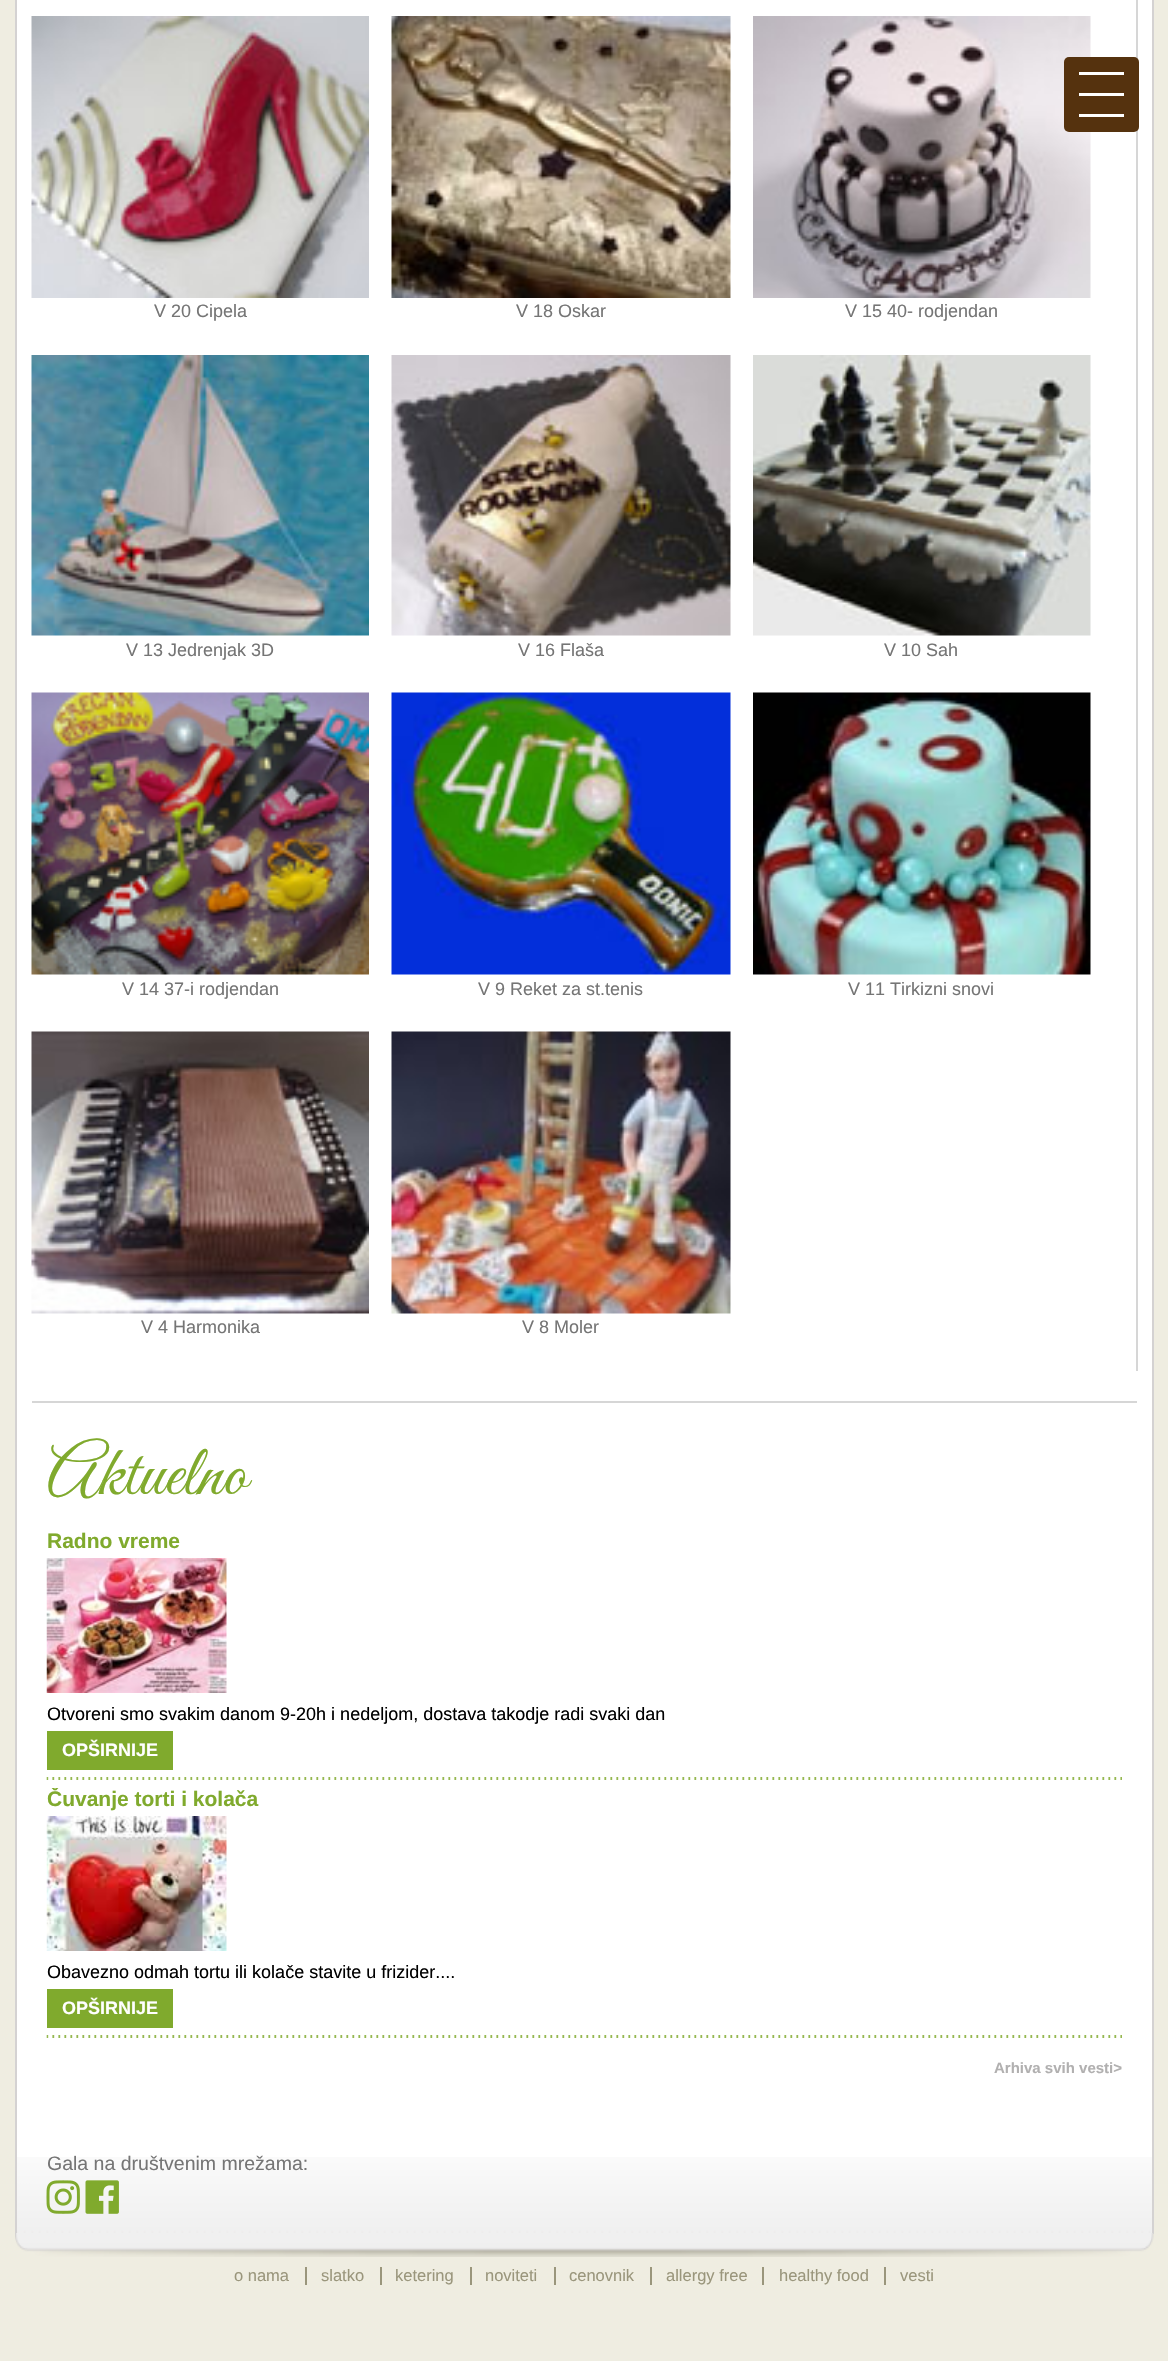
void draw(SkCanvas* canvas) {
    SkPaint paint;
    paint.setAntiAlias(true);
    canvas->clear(0xFFEFEDE1);
    paint.setColor(0xFFFFFFFF);
    canvas->drawRect(SkRect::MakeXYWH(17, 0, 1135, 2157), paint);
    paint.setColor(0xFFD6D6D6);
    canvas->drawRect(SkRect::MakeXYWH(1136, 0, 2, 1371), paint);
    canvas->drawImageRect(SkImages::DeferredFromEncodedData(SkData::MakeFromFileName("img4.png")), SkRect::MakeXYWH(753, 16, 338, 282), SkSamplingOptions());
    paint.setColor(0xFF55320E);
    canvas->drawRoundRect(SkRect::MakeXYWH(1064, 57, 75, 75), 5, 5, paint);
    paint.setColor(0xFFFFFFFF);
    canvas->drawRect(SkRect::MakeXYWH(1079, 72, 45, 3), paint);
    canvas->drawRect(SkRect::MakeXYWH(1079, 93, 45, 3), paint);
    canvas->drawRect(SkRect::MakeXYWH(1079, 114, 45, 3), paint);
    canvas->drawImageRect(SkImages::DeferredFromEncodedData(SkData::MakeFromFileName("img1.png")), SkRect::MakeXYWH(17, 2157, 1135, 76), SkSamplingOptions());
    paint.setColor(0xFFD4D2D2);
    canvas->drawRect(SkRect::MakeXYWH(1152, 0, 2, 2234), paint);
    canvas->drawRect(SkRect::MakeXYWH(15, 0, 2, 2234), paint);
    canvas->drawImageRect(SkImages::DeferredFromEncodedData(SkData::MakeFromFileName("img2.png")), SkRect::MakeXYWH(31, 16, 338, 282), SkSamplingOptions());
    SkFont font1(fontMgr->matchFamilyStyle("Liberation Sans", SkFontStyle::Normal()), 18);
    font1.setSubpixel(true);
    paint.setColor(0xFF757575);
    canvas->drawString("V 20 Cipela", 154, 317, font1, paint);
    canvas->drawImageRect(SkImages::DeferredFromEncodedData(SkData::MakeFromFileName("img3.png")), SkRect::MakeXYWH(391, 16, 340, 282), SkSamplingOptions());
    canvas->drawString("V 18 Oskar", 516, 317, font1, paint);
    canvas->drawString("V 15 40- rodjendan", 845, 317, font1, paint);
    canvas->drawImageRect(SkImages::DeferredFromEncodedData(SkData::MakeFromFileName("img5.png")), SkRect::MakeXYWH(31, 355, 338, 281), SkSamplingOptions());
    canvas->drawString("V 13 Jedrenjak 3D", 126, 656, font1, paint);
    canvas->drawImageRect(SkImages::DeferredFromEncodedData(SkData::MakeFromFileName("img6.png")), SkRect::MakeXYWH(391, 355, 340, 281), SkSamplingOptions());
    canvas->drawString("V 16 Flaša", 518, 656, font1, paint);
    canvas->drawImageRect(SkImages::DeferredFromEncodedData(SkData::MakeFromFileName("img7.png")), SkRect::MakeXYWH(753, 355, 338, 281), SkSamplingOptions());
    canvas->drawString("V 10 Sah", 884, 656, font1, paint);
    canvas->drawImageRect(SkImages::DeferredFromEncodedData(SkData::MakeFromFileName("img8.png")), SkRect::MakeXYWH(31, 692, 338, 283), SkSamplingOptions());
    canvas->drawString("V 14 37-i rodjendan", 122, 995, font1, paint);
    canvas->drawImageRect(SkImages::DeferredFromEncodedData(SkData::MakeFromFileName("img9.png")), SkRect::MakeXYWH(391, 692, 340, 283), SkSamplingOptions());
    canvas->drawString("V 9 Reket za st.tenis", 478, 995, font1, paint);
    canvas->drawImageRect(SkImages::DeferredFromEncodedData(SkData::MakeFromFileName("img10.png")), SkRect::MakeXYWH(753, 692, 338, 283), SkSamplingOptions());
    canvas->drawString("V 11 Tirkizni snovi", 848, 995, font1, paint);
    canvas->drawImageRect(SkImages::DeferredFromEncodedData(SkData::MakeFromFileName("img11.png")), SkRect::MakeXYWH(31, 1031, 338, 283), SkSamplingOptions());
    canvas->drawString("V 4 Harmonika", 141, 1333, font1, paint);
    canvas->drawImageRect(SkImages::DeferredFromEncodedData(SkData::MakeFromFileName("img12.png")), SkRect::MakeXYWH(391, 1031, 340, 283), SkSamplingOptions());
    canvas->drawString("V 8 Moler", 522, 1333, font1, paint);
    paint.setColor(0xFFD6D6D6);
    canvas->drawRect(SkRect::MakeXYWH(32, 1401, 1105, 2), paint);
    SkFont font2(fontMgr->matchFamilyStyle("Great Vibes", SkFontStyle::Normal()), 72);
    font2.setSubpixel(true);
    paint.setColor(0xFF80AA2D);
    canvas->drawString("Aktuelno", 47, 1494, font2, paint);
    canvas->drawImageRect(SkImages::DeferredFromEncodedData(SkData::MakeFromFileName("img13.png")), SkRect::MakeXYWH(46, 1777, 1076, 3), SkSamplingOptions());
    SkFont font3(fontMgr->matchFamilyStyle("Liberation Sans", SkFontStyle::Bold()), 21);
    font3.setSubpixel(true);
    canvas->drawString("Radno vreme", 47, 1548, font3, paint);
    canvas->drawImageRect(SkImages::DeferredFromEncodedData(SkData::MakeFromFileName("img14.png")), SkRect::MakeXYWH(46, 1558, 181, 135), SkSamplingOptions());
    paint.setColor(0xFF000000);
    canvas->drawString("Otvoreni smo svakim danom 9-20h i nedeljom, dostava takodje radi svaki dan", 47, 1720, font1, paint);
    paint.setColor(0xFF80AA2D);
    canvas->drawRect(SkRect::MakeXYWH(47, 1731, 126, 39), paint);
    SkFont font4(fontMgr->matchFamilyStyle("Liberation Sans", SkFontStyle::Bold()), 18);
    font4.setSubpixel(true);
    paint.setColor(0xFFFFFFFF);
    canvas->drawString("OPŠIRNIJE", 62, 1756, font4, paint);
    canvas->drawImageRect(SkImages::DeferredFromEncodedData(SkData::MakeFromFileName("img15.png")), SkRect::MakeXYWH(46, 2035, 1076, 3), SkSamplingOptions());
    canvas->save();
    canvas->clipRect(SkRect::MakeXYWH(47, 1788, 1075, 251));
    paint.setColor(0xFF80AA2D);
    canvas->drawString("Čuvanje torti i kolača", 47, 1806, font3, paint);
    canvas->restore();
    canvas->drawImageRect(SkImages::DeferredFromEncodedData(SkData::MakeFromFileName("img16.png")), SkRect::MakeXYWH(46, 1816, 181, 135), SkSamplingOptions());
    paint.setColor(0xFF000000);
    canvas->drawString("Obavezno odmah tortu ili kolače stavite u frizider....", 47, 1978, font1, paint);
    paint.setColor(0xFF80AA2D);
    canvas->drawRect(SkRect::MakeXYWH(47, 1989, 126, 39), paint);
    paint.setColor(0xFFFFFFFF);
    canvas->drawString("OPŠIRNIJE", 62, 2014, font4, paint);
    SkFont font5(fontMgr->matchFamilyStyle("Liberation Sans", SkFontStyle::Bold()), 15);
    font5.setSubpixel(true);
    paint.setColor(0xFFB1B0B0);
    canvas->drawString("Arhiva svih vesti>", 994, 2073, font5, paint);
    SkFont font6(fontMgr->matchFamilyStyle("Liberation Sans", SkFontStyle::Normal()), 19.5f);
    font6.setSubpixel(true);
    paint.setColor(0xFF757575);
    canvas->drawString("Gala na društvenim mrežama:", 47, 2170, font6, paint);
    canvas->drawImageRect(SkImages::DeferredFromEncodedData(SkData::MakeFromFileName("img17.png")), SkRect::MakeXYWH(46, 2180, 34, 34), SkSamplingOptions());
    canvas->drawImageRect(SkImages::DeferredFromEncodedData(SkData::MakeFromFileName("img18.png")), SkRect::MakeXYWH(85, 2180, 34, 34), SkSamplingOptions());
    canvas->drawImageRect(SkImages::DeferredFromEncodedData(SkData::MakeFromFileName("img19.png")), SkRect::MakeXYWH(15, 2233, 1139, 24), SkSamplingOptions());
    SkFont font7(fontMgr->matchFamilyStyle("Liberation Sans", SkFontStyle::Normal()), 16.5f);
    font7.setSubpixel(true);
    paint.setColor(0xFF9A967C);
    canvas->drawString("o nama", 234, 2281, font7, paint);
    canvas->drawRect(SkRect::MakeXYWH(305, 2267, 2, 18), paint);
    canvas->drawString("slatko", 321, 2281, font7, paint);
    canvas->drawRect(SkRect::MakeXYWH(380, 2267, 2, 18), paint);
    canvas->drawString("ketering", 395, 2281, font7, paint);
    canvas->drawRect(SkRect::MakeXYWH(470, 2267, 2, 18), paint);
    canvas->drawString("noviteti", 485, 2281, font7, paint);
    canvas->drawRect(SkRect::MakeXYWH(554, 2267, 2, 18), paint);
    canvas->drawString("cenovnik", 569, 2281, font7, paint);
    canvas->drawRect(SkRect::MakeXYWH(650, 2267, 2, 18), paint);
    canvas->drawString("allergy free", 666, 2281, font7, paint);
    canvas->drawRect(SkRect::MakeXYWH(762, 2267, 2, 18), paint);
    canvas->drawString("healthy food", 779, 2281, font7, paint);
    canvas->drawRect(SkRect::MakeXYWH(884, 2267, 2, 18), paint);
    canvas->drawString("vesti", 900, 2281, font7, paint);
}
